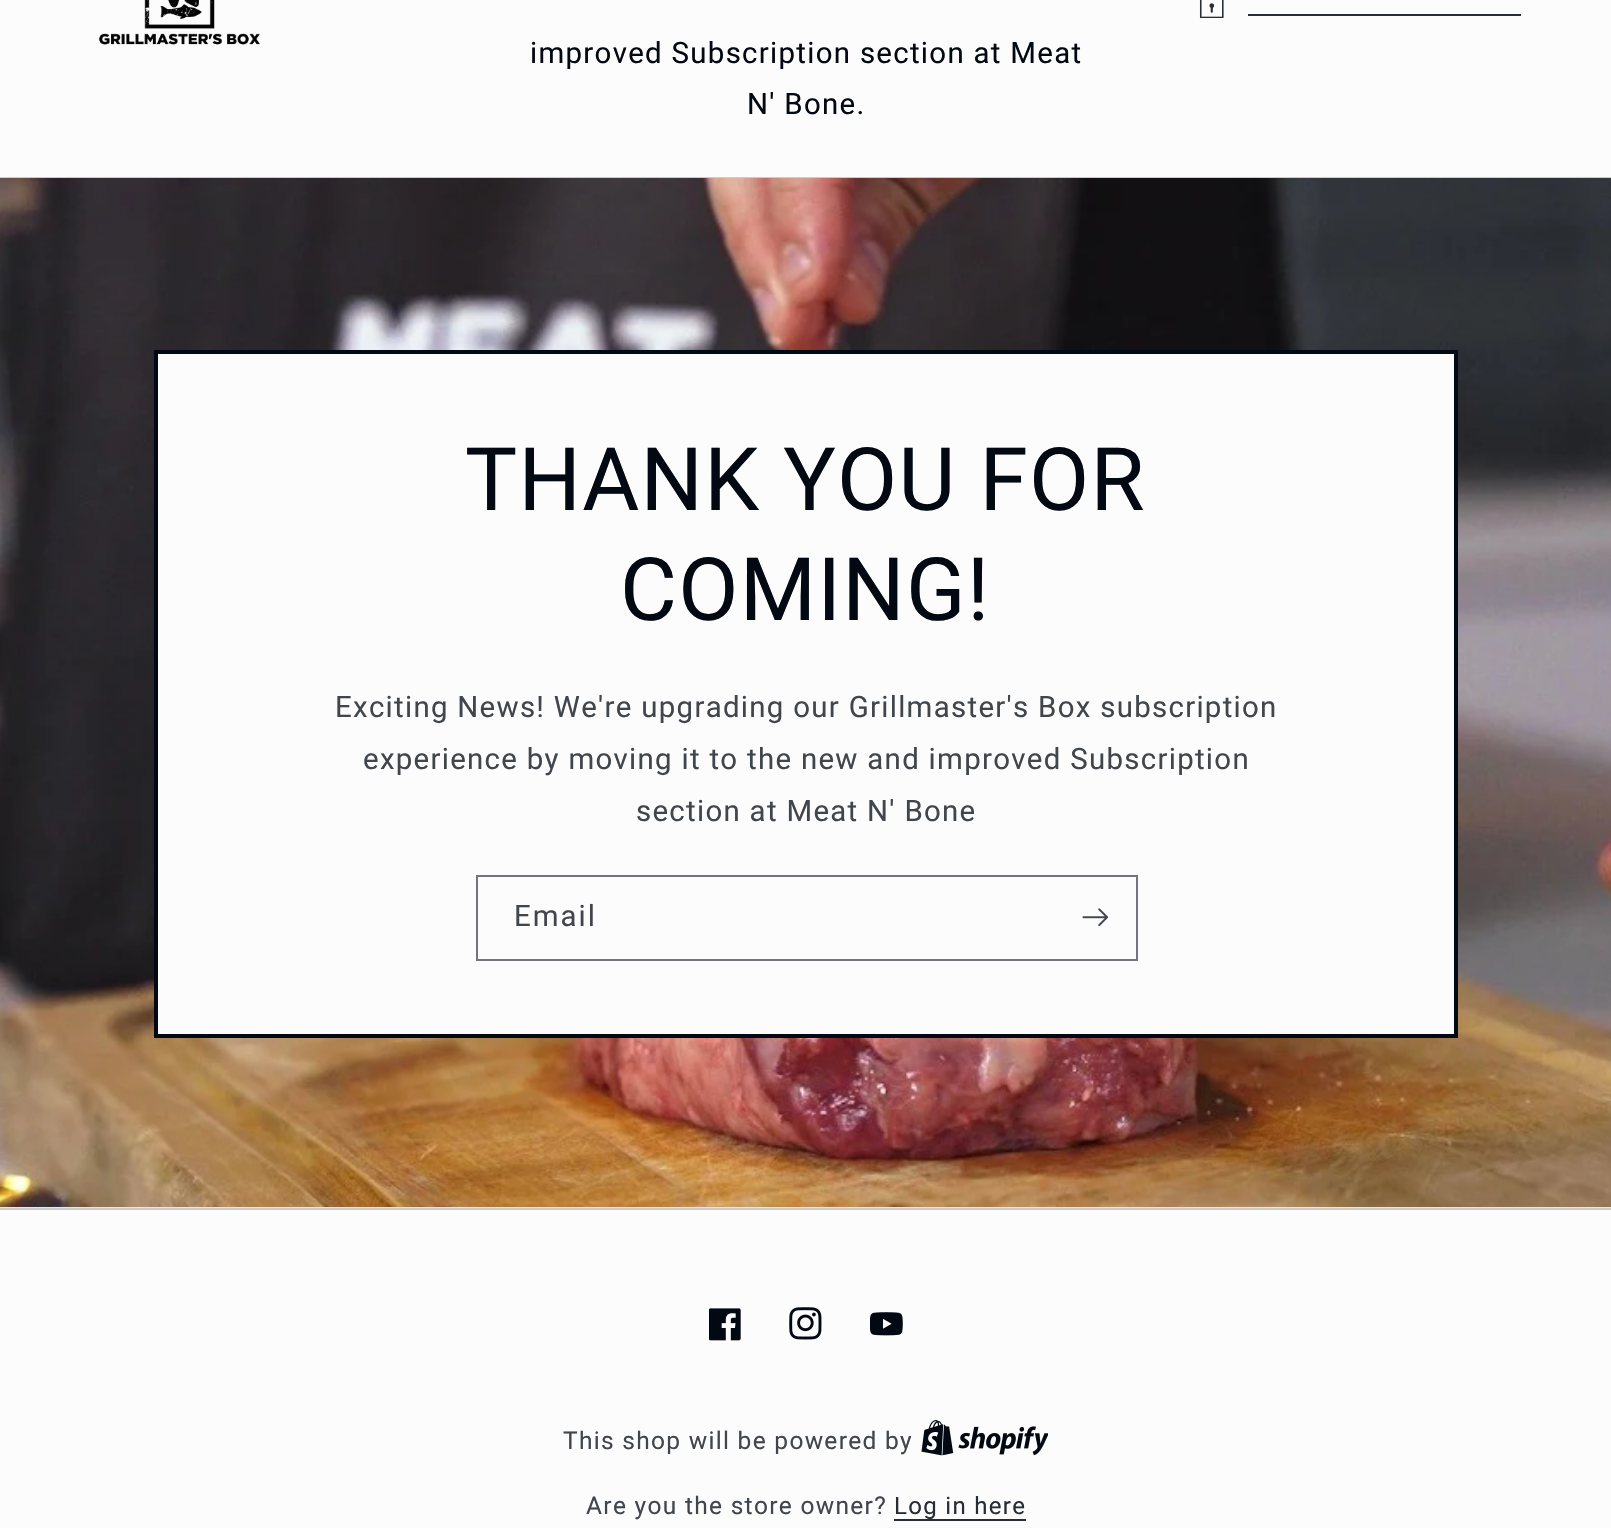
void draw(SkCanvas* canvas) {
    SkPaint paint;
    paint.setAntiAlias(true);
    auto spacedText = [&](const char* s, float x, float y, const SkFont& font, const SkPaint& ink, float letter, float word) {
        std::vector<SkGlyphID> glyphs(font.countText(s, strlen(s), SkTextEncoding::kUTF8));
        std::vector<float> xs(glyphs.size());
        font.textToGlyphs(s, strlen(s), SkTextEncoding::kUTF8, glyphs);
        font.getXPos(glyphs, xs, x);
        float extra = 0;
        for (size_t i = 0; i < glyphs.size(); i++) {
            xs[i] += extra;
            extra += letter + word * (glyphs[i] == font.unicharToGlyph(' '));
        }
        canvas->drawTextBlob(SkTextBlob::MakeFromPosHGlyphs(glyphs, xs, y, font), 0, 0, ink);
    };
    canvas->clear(0xFFFCFCFC);
    canvas->drawImageRect(SkImages::DeferredFromEncodedData(SkData::MakeFromFileName("img1.png")), SkRect::MakeXYWH(99, 0, 161, 45), SkSamplingOptions());
    canvas->drawImageRect(SkImages::DeferredFromEncodedData(SkData::MakeFromFileName("img2.png")), SkRect::MakeXYWH(1199, 0, 25, 18), SkSamplingOptions());
    paint.setColor(0xFF282D35);
    canvas->drawRect(SkRect::MakeXYWH(1248, 14, 273, 2), paint);
    SkFont font1(fontMgr->matchFamilyStyle("Roboto", SkFontStyle::Normal()), 29.4f);
    font1.setSubpixel(true);
    paint.setColor(0xFF020912);
    spacedText("improved Subscription section at Meat", 530, 63, font1, paint, 1.3f, 0);
    spacedText("N' Bone.", 747, 114, font1, paint, 1.3f, 0);
    paint.setColor(0xFFCACBCD);
    canvas->drawRect(SkRect::MakeXYWH(0, 177, 1611, 1), paint);
    paint.setColor(0xFFE6E7E8);
    canvas->drawRect(SkRect::MakeXYWH(0, 1207, 1611, 1), paint);
    canvas->drawImageRect(SkImages::DeferredFromEncodedData(SkData::MakeFromFileName("img3.png")), SkRect::MakeXYWH(0, 178, 1611, 1029), SkSamplingOptions());
    paint.setColor(0xFFFCFCFC);
    canvas->drawRect(SkRect::MakeXYWH(156, 352, 1300, 684), paint);
    paint.setStyle(SkPaint::kStroke_Style);
    paint.setStrokeWidth(4);
    paint.setColor(0xFF020912);
    canvas->drawRect(SkRect::MakeXYWH(156, 352, 1300, 684), paint);
    SkFont font2(fontMgr->matchFamilyStyle("Roboto", SkFontStyle::Normal()), 87.5f);
    font2.setSubpixel(true);
    paint.setStyle(SkPaint::kFill_Style);
    spacedText("THANK YOU FOR", 465, 510, font2, paint, 1.25f, 0);
    spacedText("COMING!", 620, 620, font2, paint, 1.25f, 0);
    paint.setColor(0xFF41464D);
    spacedText("Exciting News! We're upgrading our Grillmaster's Box subscription", 335, 717, font1, paint, 1.3f, 0);
    spacedText("experience by moving it to the new and improved Subscription", 363, 769, font1, paint, 1.3f, 0);
    spacedText("section at Meat N' Bone", 636, 821, font1, paint, 1.3f, 0);
    paint.setStyle(SkPaint::kStroke_Style);
    paint.setStrokeWidth(2);
    paint.setColor(0xFF72767B);
    canvas->drawRect(SkRect::MakeXYWH(477, 876, 660, 84), paint);
    paint.setStyle(SkPaint::kFill_Style);
    paint.setColor(0xFF41464D);
    spacedText("Email", 514, 926, font1, paint, 2, 0);
    canvas->drawImageRect(SkImages::DeferredFromEncodedData(SkData::MakeFromFileName("img4.png")), SkRect::MakeXYWH(1082, 908, 26, 18), SkSamplingOptions());
    paint.setColor(0xFFCACBCD);
    canvas->drawRect(SkRect::MakeXYWH(0, 1208, 1611, 2), paint);
    canvas->drawImageRect(SkImages::DeferredFromEncodedData(SkData::MakeFromFileName("img5.png")), SkRect::MakeXYWH(709, 1308, 32, 33), SkSamplingOptions());
    canvas->drawImageRect(SkImages::DeferredFromEncodedData(SkData::MakeFromFileName("img6.png")), SkRect::MakeXYWH(789, 1307, 33, 33), SkSamplingOptions());
    canvas->drawImageRect(SkImages::DeferredFromEncodedData(SkData::MakeFromFileName("img7.png")), SkRect::MakeXYWH(870, 1312, 33, 24), SkSamplingOptions());
    SkFont font3(fontMgr->matchFamilyStyle("Roboto", SkFontStyle::Normal()), 24.5f);
    font3.setSubpixel(true);
    paint.setColor(0xFF41464D);
    spacedText("This shop will be powered by", 563, 1449, font3, paint, 1.3f, 0);
    canvas->drawImageRect(SkImages::DeferredFromEncodedData(SkData::MakeFromFileName("img8.png")), SkRect::MakeXYWH(921, 1420, 127, 36), SkSamplingOptions());
    spacedText("Are you the store owner?", 586, 1514, font3, paint, 1.3f, 0);
    SkFont font4(fontMgr->matchFamilyStyle("Roboto", SkFontStyle::Normal()), 24);
    font4.setSubpixel(true);
    paint.setColor(0xFF282D35);
    spacedText("Log in here", 894, 1514, font4, paint, 1.3f, 0);
    canvas->drawRect(SkRect::MakeXYWH(894, 1519, 132, 2), paint);
}
